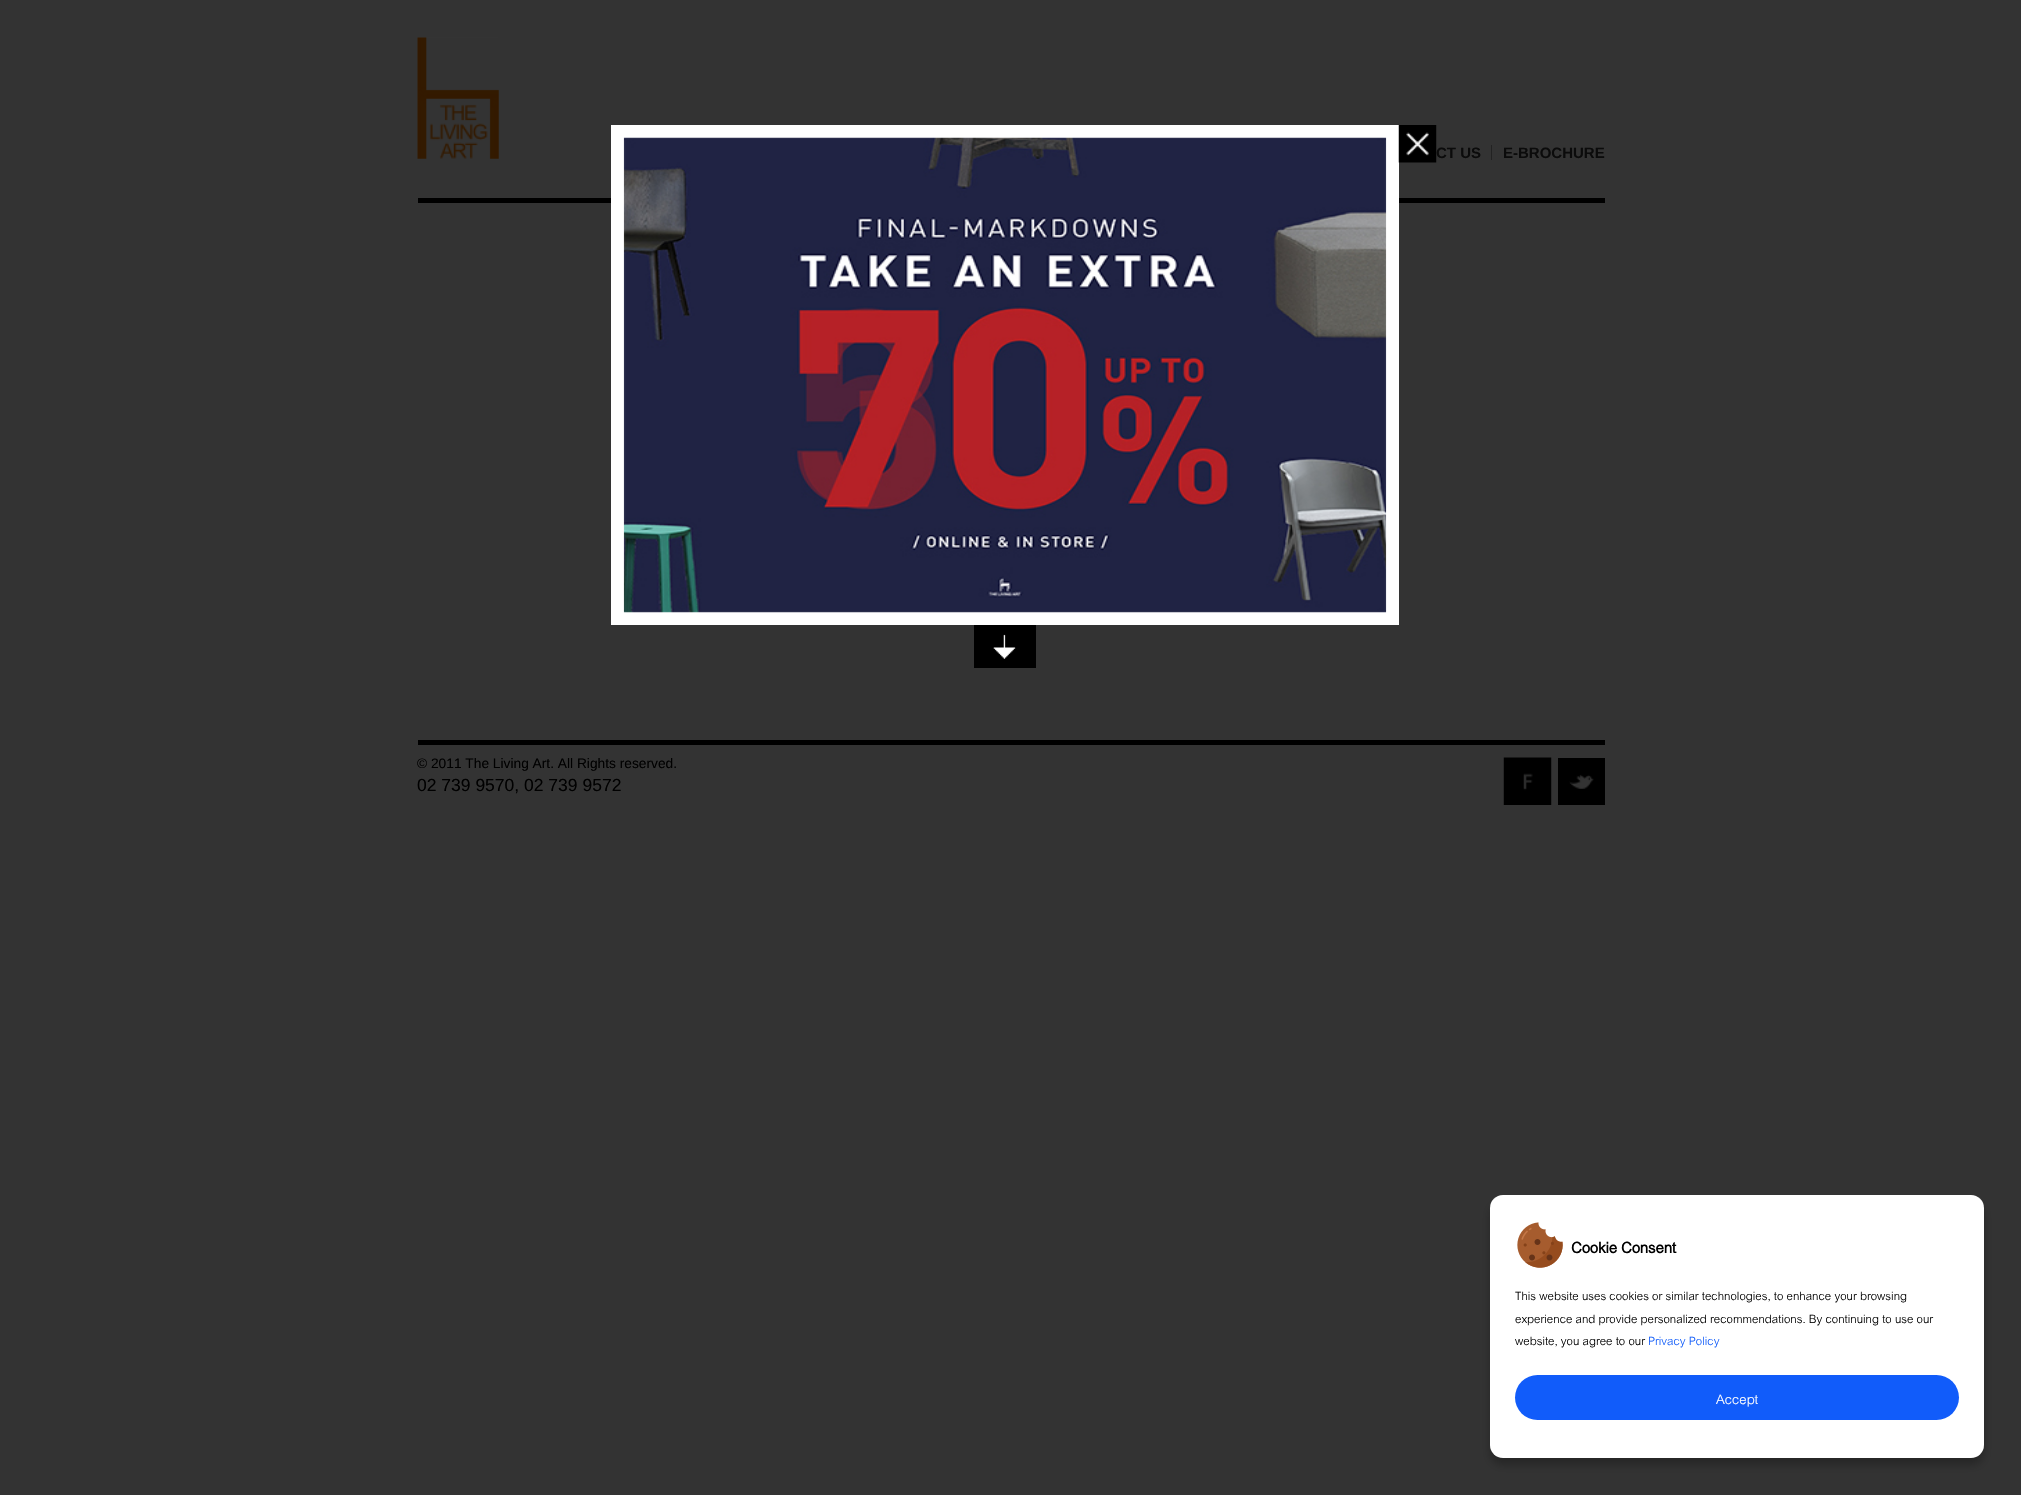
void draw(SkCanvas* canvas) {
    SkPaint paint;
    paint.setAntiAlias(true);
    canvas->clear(0xFF333333);
    paint.setColor(0xFF000000);
    canvas->drawRect(SkRect::MakeXYWH(418, 198, 1187, 5), paint);
    paint.setColor(0xFFFFFFFF);
    canvas->drawRect(SkRect::MakeXYWH(611, 125, 788, 500), paint);
    canvas->drawImageRect(SkImages::DeferredFromEncodedData(SkData::MakeFromFileName("img1.png")), SkRect::MakeXYWH(623, 137, 764, 476), SkSamplingOptions());
    canvas->drawImageRect(SkImages::DeferredFromEncodedData(SkData::MakeFromFileName("img2.png")), SkRect::MakeXYWH(1398, 125, 39, 38), SkSamplingOptions());
    paint.setColor(0xFF000000);
    canvas->drawRect(SkRect::MakeXYWH(974, 625, 62, 43), paint);
    canvas->drawImageRect(SkImages::DeferredFromEncodedData(SkData::MakeFromFileName("img3.png")), SkRect::MakeXYWH(993, 634, 23, 25), SkSamplingOptions());
    canvas->drawImageRect(SkImages::DeferredFromEncodedData(SkData::MakeFromFileName("img4.png")), SkRect::MakeXYWH(417, 37, 82, 122), SkSamplingOptions());
    SkFont font1(fontMgr->matchFamilyStyle("Liberation Sans", SkFontStyle::Bold()), 15);
    font1.setSubpixel(true);
    paint.setColor(0xFF0B0B0B);
    canvas->drawString("CT US", 1436, 158, font1, paint);
    paint.setColor(0xFF222222);
    canvas->drawRect(SkRect::MakeXYWH(1491, 145, 1, 15), paint);
    paint.setColor(0xFF0B0B0B);
    canvas->drawString("E-BROCHURE", 1503, 158, font1, paint);
    paint.setColor(0xFF000000);
    canvas->drawRect(SkRect::MakeXYWH(418, 740, 1187, 5), paint);
    SkFont font2(fontMgr->matchFamilyStyle("Liberation Sans", SkFontStyle::Normal()), 13.75f);
    font2.setSubpixel(true);
    canvas->drawString("© 2011 The Living Art. All Rights reserved.", 417, 768, font2, paint);
    SkFont font3(fontMgr->matchFamilyStyle("Liberation Sans", SkFontStyle::Normal()), 17.5f);
    font3.setSubpixel(true);
    canvas->drawString("02 739 9570, 02 739 9572", 417, 791, font3, paint);
    canvas->drawImageRect(SkImages::DeferredFromEncodedData(SkData::MakeFromFileName("img5.png")), SkRect::MakeXYWH(1503, 757, 49, 48), SkSamplingOptions());
    canvas->drawRect(SkRect::MakeXYWH(1558, 758, 47, 47), paint);
    canvas->drawImageRect(SkImages::DeferredFromEncodedData(SkData::MakeFromFileName("img6.png")), SkRect::MakeXYWH(1569, 774, 25, 15), SkSamplingOptions());
    paint.setColor(0x40000000);
    paint.setMaskFilter(SkMaskFilter::MakeBlur(kNormal_SkBlurStyle, 4));
    canvas->drawRoundRect(SkRect::MakeXYWH(1490, 1203, 494, 262), 13, 13, paint);
    paint.setMaskFilter(nullptr);
    paint.setColor(0xFFFFFFFF);
    canvas->drawRoundRect(SkRect::MakeXYWH(1490, 1195, 494, 263), 13, 13, paint);
    canvas->drawImageRect(SkImages::DeferredFromEncodedData(SkData::MakeFromFileName("img7.png")), SkRect::MakeXYWH(1517, 1222, 46, 46), SkSamplingOptions());
    SkFont font4(fontMgr->matchFamilyStyle("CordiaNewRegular", SkFontStyle::Bold()), 22.5f);
    font4.setSubpixel(true);
    paint.setColor(0xFF000000);
    canvas->drawString("Cookie Consent", 1571, 1253, font4, paint);
    SkFont font5(fontMgr->matchFamilyStyle("CordiaNewRegular", SkFontStyle::Normal()), 17.5f);
    font5.setSubpixel(true);
    canvas->drawString("This website uses cookies or similar technologies, to enhance your browsing", 1515, 1300, font5, paint);
    canvas->drawString("experience and provide personalized recommendations. By continuing to use our", 1515, 1323, font5, paint);
    canvas->drawString("website, you agree to our", 1515, 1345, font5, paint);
    paint.setColor(0xFF115CFA);
    canvas->drawString("Privacy Policy", 1648, 1345, font5, paint);
    canvas->drawRoundRect(SkRect::MakeXYWH(1515, 1375, 444, 45), 22.5f, 22.5f, paint);
    SkFont font6(fontMgr->matchFamilyStyle("CordiaNewRegular", SkFontStyle::Normal()), 20);
    font6.setSubpixel(true);
    paint.setColor(0xFFFFFFFF);
    canvas->drawString("Accept", 1716, 1404, font6, paint);
}
